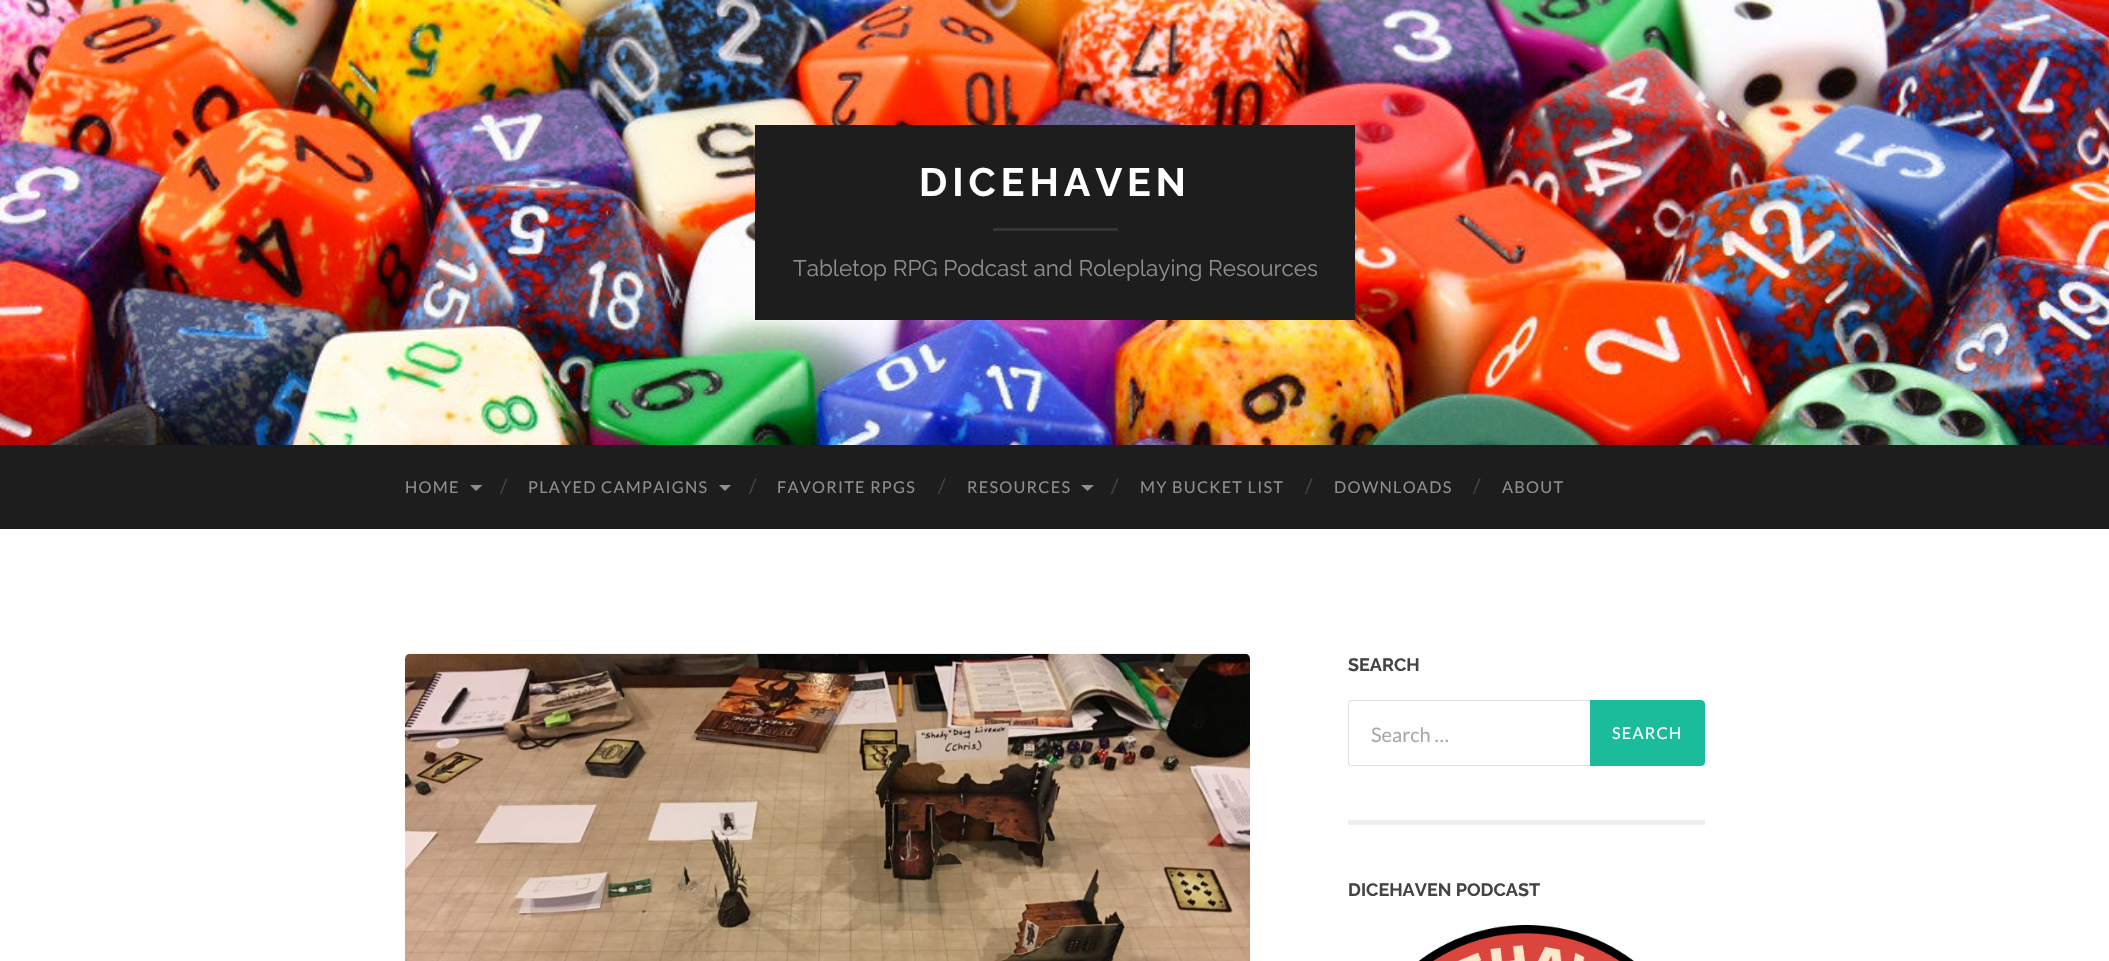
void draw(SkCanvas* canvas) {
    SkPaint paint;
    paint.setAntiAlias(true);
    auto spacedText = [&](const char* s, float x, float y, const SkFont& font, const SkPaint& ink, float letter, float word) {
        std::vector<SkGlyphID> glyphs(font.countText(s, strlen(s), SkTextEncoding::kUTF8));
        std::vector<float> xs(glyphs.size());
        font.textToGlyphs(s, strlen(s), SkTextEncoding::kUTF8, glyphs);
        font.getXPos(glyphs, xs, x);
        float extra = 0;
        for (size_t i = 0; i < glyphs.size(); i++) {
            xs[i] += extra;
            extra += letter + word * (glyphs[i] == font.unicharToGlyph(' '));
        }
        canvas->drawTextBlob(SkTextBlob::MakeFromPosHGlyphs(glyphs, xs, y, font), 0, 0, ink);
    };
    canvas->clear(0xFFFFFFFF);
    canvas->drawImageRect(SkImages::DeferredFromEncodedData(SkData::MakeFromFileName("img1.png")), SkRect::MakeXYWH(0, 0, 2109, 445), SkSamplingOptions());
    paint.setColor(0xFF1D1D1D);
    canvas->drawRect(SkRect::MakeXYWH(755, 125, 600, 195), paint);
    SkFont font1(fontMgr->matchFamilyStyle("Raleway", SkFontStyle(100, SkFontStyle::kNormal_Width, SkFontStyle::kUpright_Slant)), 39.5f);
    font1.setSubpixel(true);
    paint.setColor(0xFFFFFFFF);
    spacedText("DICEHAVEN", 919, 196, font1, paint, 5, 0);
    paint.setColor(0xFF343434);
    canvas->drawRect(SkRect::MakeXYWH(993, 228, 125, 3), paint);
    SkFont font2(fontMgr->matchFamilyStyle("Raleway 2", SkFontStyle(100, SkFontStyle::kNormal_Width, SkFontStyle::kUpright_Slant)), 22.5f);
    font2.setSubpixel(true);
    paint.setColor(0xFF8E8E8E);
    canvas->drawString("Tabletop RPG Podcast and Roleplaying Resources", 793, 276, font2, paint);
    paint.setColor(0xFF1D1D1D);
    canvas->drawRect(SkRect::MakeXYWH(0, 445, 2109, 84), paint);
    SkFont font3(fontMgr->matchFamilyStyle("Lato", SkFontStyle::Normal()), 16.25f);
    font3.setSubpixel(true);
    paint.setColor(0xFF8E8E8E);
    spacedText("HOME", 405, 493, font3, paint, 1.25f, 0);
    canvas->drawPath(SkPathBuilder().moveTo(470, 485).lineTo(482.5f, 485).lineTo(476, 491).close().detach(), paint);
    SkFont font4(fontMgr->matchFamilyStyle("Lato", SkFontStyle::Normal()), 20);
    font4.setSubpixel(true);
    paint.setColor(0xFF444444);
    canvas->drawString("/", 500, 493, font4, paint);
    paint.setColor(0xFF8E8E8E);
    spacedText("PLAYED CAMPAIGNS", 528, 493, font3, paint, 1.25f, 0);
    canvas->drawPath(SkPathBuilder().moveTo(719, 485).lineTo(731, 485).lineTo(725, 491).close().detach(), paint);
    paint.setColor(0xFF444444);
    canvas->drawString("/", 749, 493, font4, paint);
    paint.setColor(0xFF8E8E8E);
    spacedText("FAVORITE RPGS", 777, 493, font3, paint, 1.25f, 0);
    paint.setColor(0xFF444444);
    canvas->drawString("/", 938, 493, font4, paint);
    paint.setColor(0xFF8E8E8E);
    spacedText("RESOURCES", 967, 493, font3, paint, 1.25f, 0);
    canvas->drawPath(SkPathBuilder().moveTo(1081, 485).lineTo(1094, 485).lineTo(1087.5f, 491).close().detach(), paint);
    paint.setColor(0xFF444444);
    canvas->drawString("/", 1111, 493, font4, paint);
    paint.setColor(0xFF8E8E8E);
    spacedText("MY BUCKET LIST", 1140, 493, font3, paint, 1.25f, 0);
    paint.setColor(0xFF444444);
    canvas->drawString("/", 1305, 493, font4, paint);
    paint.setColor(0xFF8E8E8E);
    spacedText("DOWNLOADS", 1334, 493, font3, paint, 1.25f, 0);
    paint.setColor(0xFF444444);
    canvas->drawString("/", 1473, 493, font4, paint);
    paint.setColor(0xFF8E8E8E);
    spacedText("ABOUT", 1502, 493, font3, paint, 1.25f, 0);
    canvas->drawImageRect(SkImages::DeferredFromEncodedData(SkData::MakeFromFileName("img2.png")), SkRect::MakeXYWH(405, 653, 845, 308), SkSamplingOptions());
    paint.setColor(0xFFEEEEEE);
    canvas->drawRect(SkRect::MakeXYWH(1348, 820, 357, 5), paint);
    SkFont font5(fontMgr->matchFamilyStyle("Raleway", SkFontStyle(100, SkFontStyle::kNormal_Width, SkFontStyle::kUpright_Slant)), 18);
    font5.setSubpixel(true);
    paint.setColor(0xFF444444);
    canvas->drawString("SEARCH", 1348, 671, font5, paint);
    paint.setColor(0xFFE1E1E3);
    canvas->drawPath(SkPathBuilder(SkPathFillType::kEvenOdd).moveTo(1351, 700).lineTo(1590, 700).lineTo(1590, 766).lineTo(1351, 766).cubicTo(1349, 766, 1348, 765, 1348, 762).lineTo(1348, 704).cubicTo(1348, 702, 1349, 700, 1351, 700).close().moveTo(1351, 701).lineTo(1590, 701).lineTo(1590, 765).lineTo(1351, 765).cubicTo(1350, 765, 1349, 764, 1349, 762).lineTo(1349, 704).cubicTo(1349, 702, 1350, 701, 1351, 701).close().detach(), paint);
    paint.setColor(0xFFA9A9A9);
    canvas->drawString("Search …", 1371, 742, font4, paint);
    paint.setColor(0xFF1ABC9C);
    canvas->drawPath(SkPathBuilder().moveTo(1590, 700).lineTo(1701, 700).cubicTo(1703, 700, 1705, 702, 1705, 704).lineTo(1705, 762).cubicTo(1705, 764, 1703, 766, 1701, 766).lineTo(1590, 766).close().detach(), paint);
    paint.setColor(0xFFFFFFFF);
    spacedText("SEARCH", 1612, 739, font3, paint, 1.25f, 0);
    paint.setColor(0xFF444444);
    canvas->drawString("DICEHAVEN PODCAST", 1348, 896, font5, paint);
    canvas->drawImageRect(SkImages::DeferredFromEncodedData(SkData::MakeFromFileName("img3.png")), SkRect::MakeXYWH(1418, 925, 216, 36), SkSamplingOptions());
}
